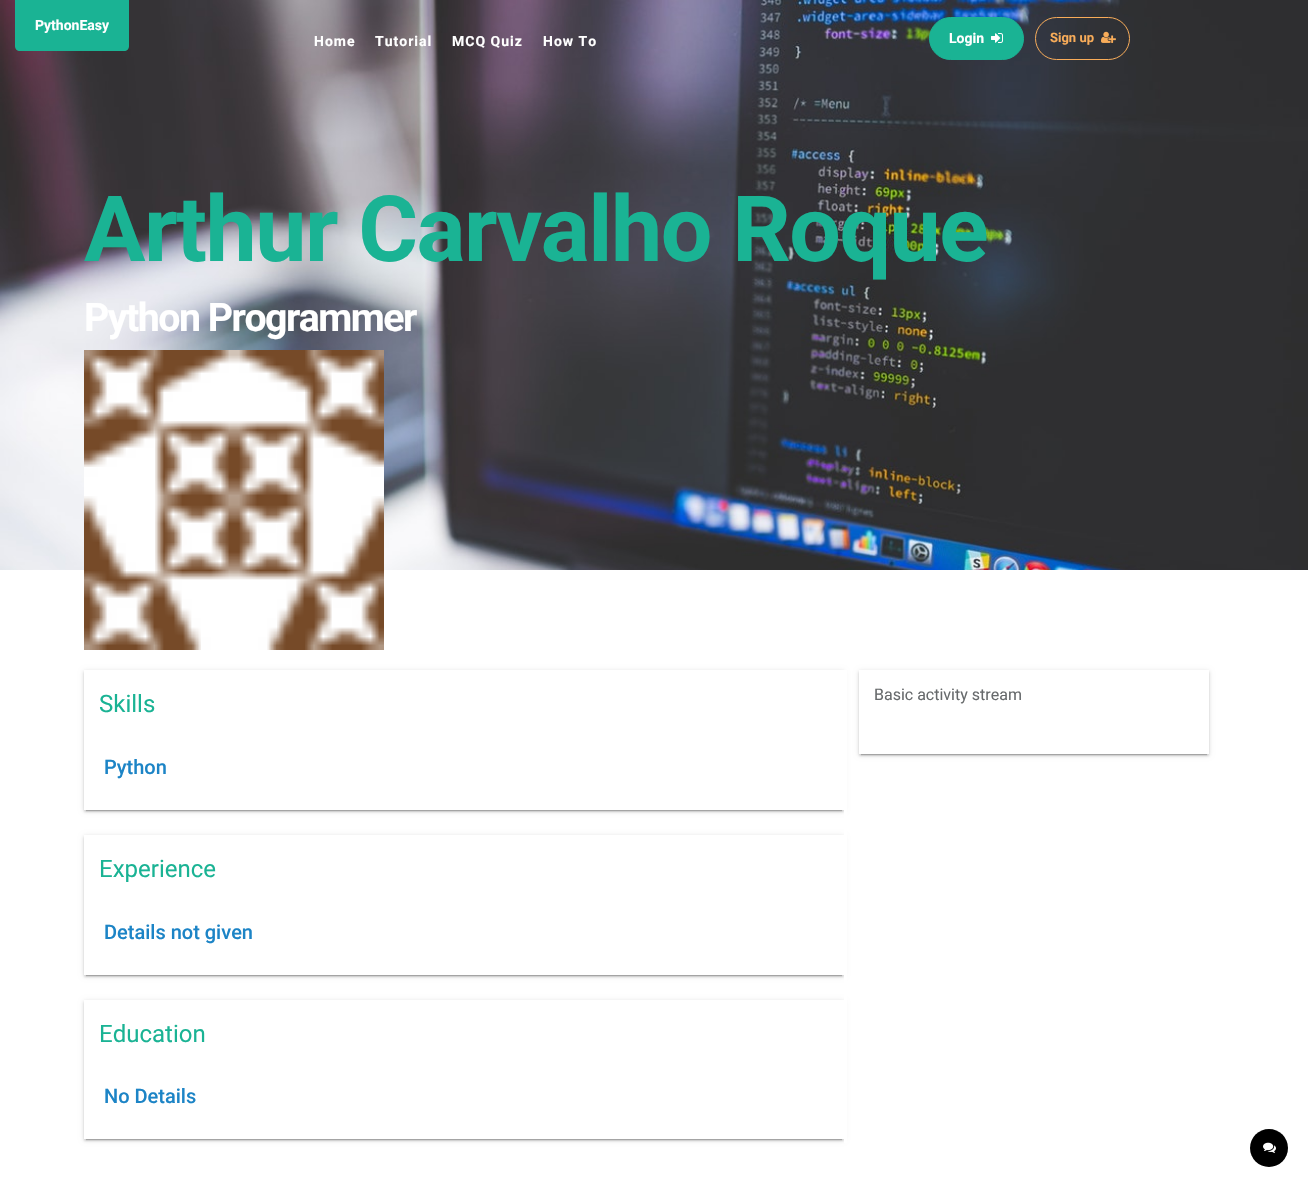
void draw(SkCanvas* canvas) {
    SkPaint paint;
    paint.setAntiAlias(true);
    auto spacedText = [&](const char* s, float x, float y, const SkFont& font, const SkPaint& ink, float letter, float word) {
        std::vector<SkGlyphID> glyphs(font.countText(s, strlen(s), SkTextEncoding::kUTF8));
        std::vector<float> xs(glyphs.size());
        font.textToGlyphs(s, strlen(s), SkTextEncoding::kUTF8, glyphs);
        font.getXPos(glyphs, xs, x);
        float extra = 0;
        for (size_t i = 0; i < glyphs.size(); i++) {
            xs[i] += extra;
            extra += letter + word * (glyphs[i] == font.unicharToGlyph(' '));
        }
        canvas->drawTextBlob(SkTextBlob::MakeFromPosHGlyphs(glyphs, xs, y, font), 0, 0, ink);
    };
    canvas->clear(0xFFFFFFFF);
    canvas->drawImageRect(SkImages::DeferredFromEncodedData(SkData::MakeFromFileName("img3.png")), SkRect::MakeXYWH(0, 0, 1308, 570), SkSamplingOptions());
    paint.setColor(0xFF1AB394);
    canvas->drawPath(SkPathBuilder().moveTo(15, 0).lineTo(129, 0).lineTo(129, 46).cubicTo(129, 49, 127, 51, 124, 51).lineTo(20, 51).cubicTo(17, 51, 15, 49, 15, 46).close().detach(), paint);
    SkFont font1(fontMgr->matchFamilyStyle("Roboto", SkFontStyle::Bold()), 14);
    font1.setSubpixel(true);
    paint.setColor(0xFFFFFFFF);
    canvas->drawString("PythonEasy", 35, 30, font1, paint);
    spacedText("Home", 314, 46, font1, paint, 1, 0);
    spacedText("Tutorial", 375, 46, font1, paint, 1, 0);
    spacedText("MCQ Quiz", 452, 46, font1, paint, 1, 0);
    spacedText("How To", 543, 46, font1, paint, 1, 0);
    paint.setColor(0xFF1AB394);
    canvas->drawRoundRect(SkRect::MakeXYWH(929.5f, 17.5f, 94, 42), 21, 21, paint);
    paint.setStyle(SkPaint::kStroke_Style);
    paint.setStrokeWidth(1);
    canvas->drawRoundRect(SkRect::MakeXYWH(929.5f, 17.5f, 94, 42), 21, 21, paint);
    paint.setStyle(SkPaint::kFill_Style);
    paint.setColor(0xFFFFFFFF);
    canvas->drawString("Login", 949, 43, font1, paint);
    canvas->drawImageRect(SkImages::DeferredFromEncodedData(SkData::MakeFromFileName("img1.png")), SkRect::MakeXYWH(991, 33, 12, 10), SkSamplingOptions());
    paint.setStyle(SkPaint::kStroke_Style);
    paint.setColor(0xFFF8AC59);
    canvas->drawRoundRect(SkRect::MakeXYWH(1035.5f, 17.5f, 94, 42), 21, 21, paint);
    SkFont font2(fontMgr->matchFamilyStyle("Roboto", SkFontStyle::Bold()), 13);
    font2.setSubpixel(true);
    paint.setStyle(SkPaint::kFill_Style);
    canvas->drawString("Sign up", 1050, 42, font2, paint);
    canvas->drawImageRect(SkImages::DeferredFromEncodedData(SkData::MakeFromFileName("img2.png")), SkRect::MakeXYWH(1101, 31, 15, 12), SkSamplingOptions());
    SkFont font3(fontMgr->matchFamilyStyle("Roboto", SkFontStyle::Bold()), 91.5f);
    font3.setSubpixel(true);
    paint.setColor(0xFF1AB394);
    spacedText("Arthur Carvalho Roque", 84, 261, font3, paint, -1.5f, 0);
    SkFont font4(fontMgr->matchFamilyStyle("Roboto", SkFontStyle::Bold()), 39.25f);
    font4.setSubpixel(true);
    paint.setColor(0xFFFFFFFF);
    spacedText("Python Programmer", 84, 331, font4, paint, -1.5f, 0);
    canvas->drawImageRect(SkImages::DeferredFromEncodedData(SkData::MakeFromFileName("img4.png")), SkRect::MakeXYWH(84, 350, 300, 300), SkSamplingOptions());
    canvas->save();
    canvas->clipPath(SkPathBuilder(SkPathFillType::kEvenOdd).moveTo(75, 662).lineTo(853, 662).lineTo(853, 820).lineTo(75, 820).close().moveTo(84, 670).lineTo(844, 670).lineTo(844, 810).lineTo(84, 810).close().detach(), true);
    paint.setColor(0x1F000000);
    paint.setMaskFilter(SkMaskFilter::MakeBlur(kNormal_SkBlurStyle, 2.5f));
    canvas->drawRect(SkRect::MakeXYWH(84, 671, 760, 140), paint);
    paint.setMaskFilter(nullptr);
    canvas->restore();
    canvas->save();
    canvas->clipRect(SkRect::MakeXYWH(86, 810, 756, 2));
    paint.setColor(0x33000000);
    paint.setMaskFilter(SkMaskFilter::MakeBlur(kNormal_SkBlurStyle, 0.5f));
    canvas->drawRect(SkRect::MakeXYWH(86, 675, 756, 136), paint);
    paint.setMaskFilter(nullptr);
    canvas->restore();
    canvas->save();
    canvas->clipPath(SkPathBuilder(SkPathFillType::kEvenOdd).moveTo(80, 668).lineTo(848, 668).lineTo(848, 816).lineTo(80, 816).close().moveTo(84, 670).lineTo(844, 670).lineTo(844, 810).lineTo(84, 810).close().detach(), true);
    paint.setColor(0x24000000);
    paint.setMaskFilter(SkMaskFilter::MakeBlur(kNormal_SkBlurStyle, 1));
    canvas->drawRect(SkRect::MakeXYWH(84, 672, 760, 140), paint);
    paint.setMaskFilter(nullptr);
    canvas->restore();
    SkFont font5(fontMgr->matchFamilyStyle("Roboto", SkFontStyle::Normal()), 24);
    font5.setSubpixel(true);
    paint.setColor(0xFF1AB394);
    canvas->drawString("Skills", 99, 712, font5, paint);
    SkFont font6(fontMgr->matchFamilyStyle("Roboto", SkFontStyle(500, SkFontStyle::kNormal_Width, SkFontStyle::kUpright_Slant)), 20);
    font6.setSubpixel(true);
    paint.setColor(0xFF1C84C6);
    canvas->drawString("Python", 104, 774, font6, paint);
    canvas->save();
    canvas->clipPath(SkPathBuilder(SkPathFillType::kEvenOdd).moveTo(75, 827).lineTo(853, 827).lineTo(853, 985).lineTo(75, 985).close().moveTo(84, 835).lineTo(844, 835).lineTo(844, 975).lineTo(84, 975).close().detach(), true);
    paint.setColor(0x1F000000);
    paint.setMaskFilter(SkMaskFilter::MakeBlur(kNormal_SkBlurStyle, 2.5f));
    canvas->drawRect(SkRect::MakeXYWH(84, 836, 760, 140), paint);
    paint.setMaskFilter(nullptr);
    canvas->restore();
    canvas->save();
    canvas->clipRect(SkRect::MakeXYWH(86, 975, 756, 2));
    paint.setColor(0x33000000);
    paint.setMaskFilter(SkMaskFilter::MakeBlur(kNormal_SkBlurStyle, 0.5f));
    canvas->drawRect(SkRect::MakeXYWH(86, 840, 756, 136), paint);
    paint.setMaskFilter(nullptr);
    canvas->restore();
    canvas->save();
    canvas->clipPath(SkPathBuilder(SkPathFillType::kEvenOdd).moveTo(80, 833).lineTo(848, 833).lineTo(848, 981).lineTo(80, 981).close().moveTo(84, 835).lineTo(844, 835).lineTo(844, 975).lineTo(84, 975).close().detach(), true);
    paint.setColor(0x24000000);
    paint.setMaskFilter(SkMaskFilter::MakeBlur(kNormal_SkBlurStyle, 1));
    canvas->drawRect(SkRect::MakeXYWH(84, 837, 760, 140), paint);
    paint.setMaskFilter(nullptr);
    canvas->restore();
    paint.setColor(0xFF1AB394);
    canvas->drawString("Experience", 99, 877, font5, paint);
    paint.setColor(0xFF1C84C6);
    canvas->drawString("Details not given", 104, 939, font6, paint);
    canvas->save();
    canvas->clipPath(SkPathBuilder(SkPathFillType::kEvenOdd).moveTo(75, 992).lineTo(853, 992).lineTo(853, 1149).lineTo(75, 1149).close().moveTo(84, 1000).lineTo(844, 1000).lineTo(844, 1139).lineTo(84, 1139).close().detach(), true);
    paint.setColor(0x1F000000);
    paint.setMaskFilter(SkMaskFilter::MakeBlur(kNormal_SkBlurStyle, 2.5f));
    canvas->drawRect(SkRect::MakeXYWH(84, 1001, 760, 139), paint);
    paint.setMaskFilter(nullptr);
    canvas->restore();
    canvas->save();
    canvas->clipRect(SkRect::MakeXYWH(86, 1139, 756, 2));
    paint.setColor(0x33000000);
    paint.setMaskFilter(SkMaskFilter::MakeBlur(kNormal_SkBlurStyle, 0.5f));
    canvas->drawRect(SkRect::MakeXYWH(86, 1005, 756, 135), paint);
    paint.setMaskFilter(nullptr);
    canvas->restore();
    canvas->save();
    canvas->clipPath(SkPathBuilder(SkPathFillType::kEvenOdd).moveTo(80, 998).lineTo(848, 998).lineTo(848, 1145).lineTo(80, 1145).close().moveTo(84, 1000).lineTo(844, 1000).lineTo(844, 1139).lineTo(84, 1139).close().detach(), true);
    paint.setColor(0x24000000);
    paint.setMaskFilter(SkMaskFilter::MakeBlur(kNormal_SkBlurStyle, 1));
    canvas->drawRect(SkRect::MakeXYWH(84, 1002, 760, 139), paint);
    paint.setMaskFilter(nullptr);
    canvas->restore();
    paint.setColor(0xFF1AB394);
    canvas->drawString("Education", 99, 1042, font5, paint);
    paint.setColor(0xFF1C84C6);
    canvas->drawString("No Details", 104, 1103, font6, paint);
    paint.setColor(0xFFFFFFFF);
    canvas->drawRect(SkRect::MakeXYWH(844, 670, 3, 473), paint);
    canvas->save();
    canvas->clipPath(SkPathBuilder(SkPathFillType::kEvenOdd).moveTo(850, 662).lineTo(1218, 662).lineTo(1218, 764).lineTo(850, 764).close().moveTo(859, 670).lineTo(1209, 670).lineTo(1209, 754).lineTo(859, 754).close().detach(), true);
    paint.setColor(0x1F000000);
    paint.setMaskFilter(SkMaskFilter::MakeBlur(kNormal_SkBlurStyle, 2.5f));
    canvas->drawRect(SkRect::MakeXYWH(859, 671, 350, 84), paint);
    paint.setMaskFilter(nullptr);
    canvas->restore();
    canvas->save();
    canvas->clipRect(SkRect::MakeXYWH(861, 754, 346, 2));
    paint.setColor(0x33000000);
    paint.setMaskFilter(SkMaskFilter::MakeBlur(kNormal_SkBlurStyle, 0.5f));
    canvas->drawRect(SkRect::MakeXYWH(861, 675, 346, 80), paint);
    paint.setMaskFilter(nullptr);
    canvas->restore();
    canvas->save();
    canvas->clipPath(SkPathBuilder(SkPathFillType::kEvenOdd).moveTo(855, 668).lineTo(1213, 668).lineTo(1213, 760).lineTo(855, 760).close().moveTo(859, 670).lineTo(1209, 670).lineTo(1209, 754).lineTo(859, 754).close().detach(), true);
    paint.setColor(0x24000000);
    paint.setMaskFilter(SkMaskFilter::MakeBlur(kNormal_SkBlurStyle, 1));
    canvas->drawRect(SkRect::MakeXYWH(859, 672, 350, 84), paint);
    paint.setMaskFilter(nullptr);
    canvas->restore();
    SkFont font7(fontMgr->matchFamilyStyle("Roboto", SkFontStyle::Normal()), 16);
    font7.setSubpixel(true);
    paint.setColor(0xFF676A6C);
    canvas->drawString("Basic activity stream", 874, 700, font7, paint);
    paint.setColor(0xFF000000);
    canvas->drawCircle(1269, 1148, 19, paint);
    canvas->drawImageRect(SkImages::DeferredFromEncodedData(SkData::MakeFromFileName("img5.png")), SkRect::MakeXYWH(1263, 1142, 13, 11), SkSamplingOptions());
}
